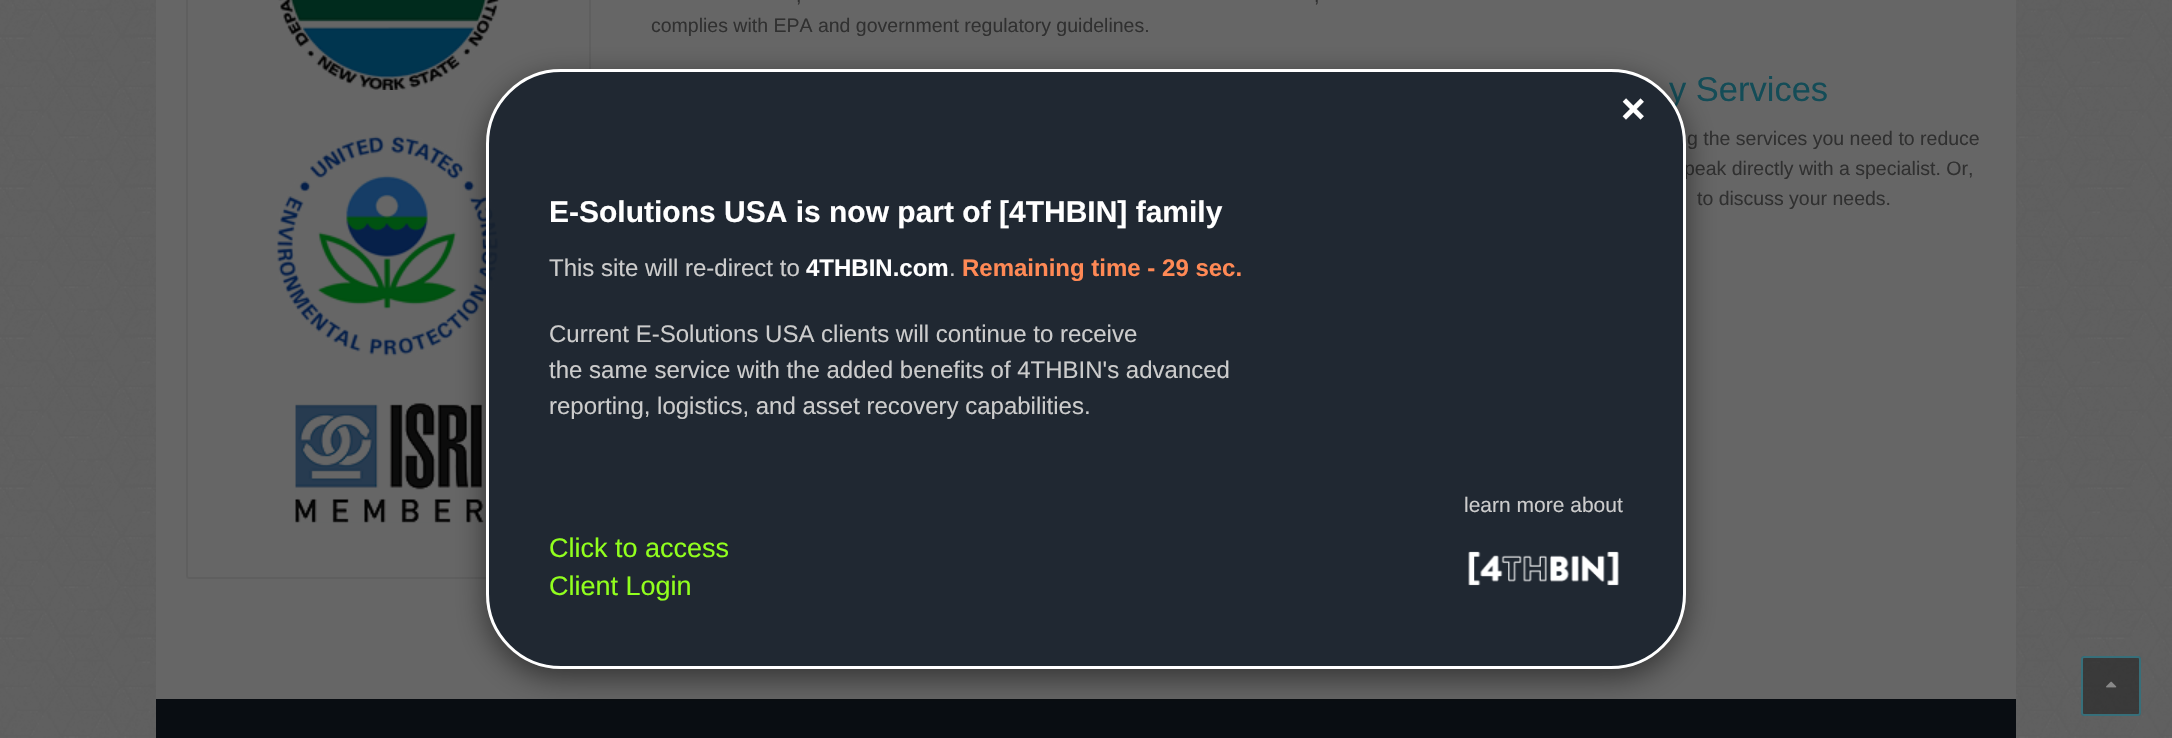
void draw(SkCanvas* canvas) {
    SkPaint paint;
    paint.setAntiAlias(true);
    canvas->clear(0xFFFFFFFF);
    canvas->drawImageRect(SkImages::DeferredFromEncodedData(SkData::MakeFromFileName("img1.png")), SkRect::MakeXYWH(0, 0, 2172, 738), SkSamplingOptions());
    paint.setColor(0xFF666666);
    canvas->drawRect(SkRect::MakeXYWH(156, 0, 1860, 699), paint);
    paint.setStyle(SkPaint::kStroke_Style);
    paint.setStrokeWidth(2);
    paint.setColor(0xFF5F5F5F);
    canvas->drawRoundRect(SkRect::MakeXYWH(187, -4, 403, 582), 2, 2, paint);
    canvas->drawImageRect(SkImages::DeferredFromEncodedData(SkData::MakeFromFileName("img2.png")), SkRect::MakeXYWH(278, 0, 222, 90), SkSamplingOptions());
    canvas->drawImageRect(SkImages::DeferredFromEncodedData(SkData::MakeFromFileName("img3.png")), SkRect::MakeXYWH(277, 136, 222, 220), SkSamplingOptions());
    canvas->drawImageRect(SkImages::DeferredFromEncodedData(SkData::MakeFromFileName("img4.png")), SkRect::MakeXYWH(295, 403, 189, 120), SkSamplingOptions());
    SkFont font1(fontMgr->matchFamilyStyle("Liberation Sans", SkFontStyle::Normal()), 19.5f);
    font1.setSubpixel(true);
    paint.setStyle(SkPaint::kFill_Style);
    paint.setColor(0xFF303030);
    canvas->drawString(",", 796, 2, font1, paint);
    canvas->drawString(",", 1314, 2, font1, paint);
    canvas->drawString("complies with EPA and government regulatory guidelines.", 651, 32, font1, paint);
    SkFont font2(fontMgr->matchFamilyStyle("Liberation Sans", SkFontStyle::Normal()), 34.5f);
    font2.setSubpixel(true);
    paint.setColor(0xFF144C57);
    canvas->drawString("y Services", 1669, 101, font2, paint);
    paint.setColor(0xFF303030);
    canvas->drawString("g the services you need to reduce", 1687, 145, font1, paint);
    canvas->drawString("peak directly with a specialist. Or,", 1684, 175, font1, paint);
    canvas->drawString("to discuss your needs.", 1697, 205, font1, paint);
    paint.setColor(0xFF090D12);
    canvas->drawRect(SkRect::MakeXYWH(156, 699, 1860, 39), paint);
    canvas->save();
    canvas->clipPath(SkPathBuilder(SkPathFillType::kEvenOdd).moveTo(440, 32).lineTo(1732, 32).lineTo(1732, 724).lineTo(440, 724).close().moveTo(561, 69).lineTo(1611, 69).cubicTo(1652.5f, 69, 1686, 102.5f, 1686, 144).lineTo(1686, 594).cubicTo(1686, 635.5f, 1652.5f, 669, 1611, 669).lineTo(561, 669).cubicTo(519.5f, 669, 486, 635.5f, 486, 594).lineTo(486, 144).cubicTo(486, 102.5f, 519.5f, 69, 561, 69).close().detach(), true);
    paint.setColor(0x80000000);
    paint.setMaskFilter(SkMaskFilter::MakeBlur(kNormal_SkBlurStyle, 15));
    canvas->drawRoundRect(SkRect::MakeXYWH(486, 78, 1200, 600), 75, 75, paint);
    paint.setMaskFilter(nullptr);
    canvas->restore();
    paint.setColor(0xE618212C);
    canvas->drawRoundRect(SkRect::MakeXYWH(487.5f, 70.5f, 1197, 597), 73.5f, 73.5f, paint);
    paint.setStyle(SkPaint::kStroke_Style);
    paint.setStrokeWidth(3);
    paint.setColor(0xFFFFFFFF);
    canvas->drawRoundRect(SkRect::MakeXYWH(487.5f, 70.5f, 1197, 597), 73.5f, 73.5f, paint);
    SkFont font3(fontMgr->matchFamilyStyle("Liberation Sans", SkFontStyle::Bold()), 42);
    font3.setSubpixel(true);
    paint.setStyle(SkPaint::kFill_Style);
    canvas->drawString("×", 1621, 123, font3, paint);
    SkFont font4(fontMgr->matchFamilyStyle("Liberation Sans", SkFontStyle::Bold()), 30);
    font4.setSubpixel(true);
    canvas->drawString("E-Solutions USA is now part of [4THBIN] family", 549, 222, font4, paint);
    SkFont font5(fontMgr->matchFamilyStyle("Liberation Sans", SkFontStyle::Normal()), 24);
    font5.setSubpixel(true);
    paint.setColor(0xFFCCCCCC);
    canvas->drawString("This site will re-direct to", 549, 276, font5, paint);
    SkFont font6(fontMgr->matchFamilyStyle("Liberation Sans", SkFontStyle::Bold()), 24);
    font6.setSubpixel(true);
    paint.setColor(0xFFFFFFFF);
    canvas->drawString("4THBIN.com", 806, 276, font6, paint);
    paint.setColor(0xFFCCCCCC);
    canvas->drawString(".", 949, 276, font5, paint);
    paint.setColor(0xFFFF8955);
    canvas->drawString("Remaining time - 29 sec.", 962, 276, font6, paint);
    paint.setColor(0xFFCCCCCC);
    canvas->drawString("Current E-Solutions USA clients will continue to receive", 549, 342, font5, paint);
    canvas->drawString("the same service with the added benefits of 4THBIN's advanced", 549, 378, font5, paint);
    canvas->drawString("reporting, logistics, and asset recovery capabilities.", 549, 414, font5, paint);
    SkFont font7(fontMgr->matchFamilyStyle("Liberation Sans", SkFontStyle::Normal()), 21);
    font7.setSubpixel(true);
    canvas->drawString("learn more about", 1464, 512, font7, paint);
    canvas->drawImageRect(SkImages::DeferredFromEncodedData(SkData::MakeFromFileName("img5.png")), SkRect::MakeXYWH(1468, 551, 151, 35), SkSamplingOptions());
    SkFont font8(fontMgr->matchFamilyStyle("Liberation Sans", SkFontStyle::Normal()), 27);
    font8.setSubpixel(true);
    paint.setColor(0xFF91FF1D);
    canvas->drawString("Click to access", 549, 557, font8, paint);
    canvas->drawString("Client Login", 549, 595, font8, paint);
    paint.setColor(0x66000000);
    canvas->drawRoundRect(SkRect::MakeXYWH(2081, 656, 60, 60), 3, 3, paint);
    paint.setStyle(SkPaint::kStroke_Style);
    paint.setStrokeWidth(2);
    paint.setColor(0x6633BED9);
    canvas->drawRoundRect(SkRect::MakeXYWH(2082, 657, 58, 58), 2, 2, paint);
    canvas->drawImageRect(SkImages::DeferredFromEncodedData(SkData::MakeFromFileName("img6.png")), SkRect::MakeXYWH(2106, 681, 11, 7), SkSamplingOptions());
}
